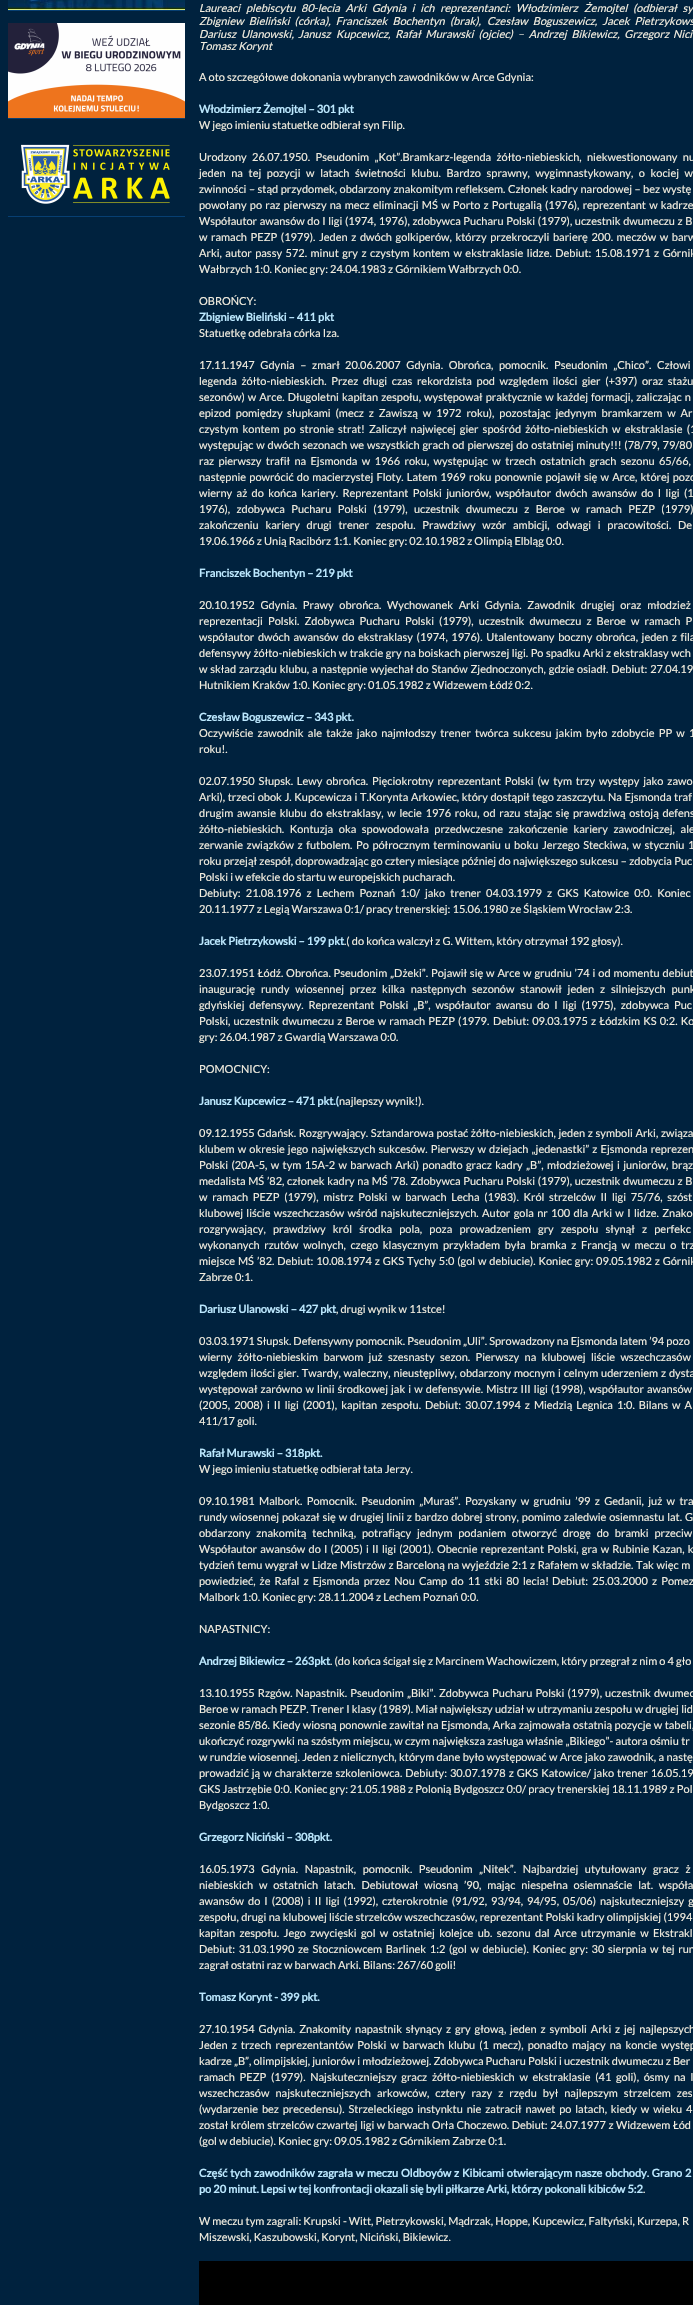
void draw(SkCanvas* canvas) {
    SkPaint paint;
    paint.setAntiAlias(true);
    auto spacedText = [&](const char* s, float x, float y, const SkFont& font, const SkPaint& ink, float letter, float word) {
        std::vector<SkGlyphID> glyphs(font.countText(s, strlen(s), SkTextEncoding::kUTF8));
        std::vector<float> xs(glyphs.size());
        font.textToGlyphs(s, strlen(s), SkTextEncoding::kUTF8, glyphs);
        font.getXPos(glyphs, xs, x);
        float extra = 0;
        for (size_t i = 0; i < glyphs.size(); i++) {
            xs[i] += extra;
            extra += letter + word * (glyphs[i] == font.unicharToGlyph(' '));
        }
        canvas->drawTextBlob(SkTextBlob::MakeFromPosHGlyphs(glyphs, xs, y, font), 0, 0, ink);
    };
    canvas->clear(0xFF00223E);
    canvas->drawImageRect(SkImages::DeferredFromEncodedData(SkData::MakeFromFileName("img1.png")), SkRect::MakeXYWH(8, 0, 177, 10), SkSamplingOptions());
    paint.setColor(0xFF073F72);
    canvas->drawRect(SkRect::MakeXYWH(8, 10, 177, 1), paint);
    canvas->drawImageRect(SkImages::DeferredFromEncodedData(SkData::MakeFromFileName("img2.png")), SkRect::MakeXYWH(8, 23, 177, 95), SkSamplingOptions());
    canvas->drawRect(SkRect::MakeXYWH(8, 118, 177, 1), paint);
    canvas->drawImageRect(SkImages::DeferredFromEncodedData(SkData::MakeFromFileName("img3.png")), SkRect::MakeXYWH(21, 144, 149, 60), SkSamplingOptions());
    canvas->drawRect(SkRect::MakeXYWH(8, 216, 177, 1), paint);
    SkFont font1(fontMgr->matchFamilyStyle("Lato", SkFontStyle::Italic()), 11);
    font1.setSubpixel(true);
    paint.setColor(0xFFF3EEE0);
    canvas->drawString("Laureaci", 199, 12, font1, paint);
    spacedText("plebiscytu 80-lecia Arki Gdynia i ich reprezentanci: Włodzimierz", 246, 12, font1, paint, 0, 3.6f);
    spacedText("Żemojtel (odbierał sy", 584, 12, font1, paint, 0, 3.6f);
    spacedText("Zbigniew Bieliński (córka), Franciszek Bochentyn", 199, 25, font1, paint, 0, 3);
    canvas->drawString("(brak),", 450, 25, font1, paint);
    spacedText("Czesław Boguszewicz, Jacek Pietrzykows", 487, 25, font1, paint, 0, 3);
    spacedText("Dariusz Ulanowski,", 199, 38, font1, paint, 0, 2.75f);
    canvas->drawString("Janusz", 298, 38, font1, paint);
    spacedText("Kupcewicz, Rafał Murawski (ojciec) – Andrzej Bikiewicz, Grzegorz", 336, 38, font1, paint, 0, 2.75f);
    canvas->drawString("Nici", 673, 38, font1, paint);
    canvas->drawString("Tomasz Korynt", 199, 50, font1, paint);
    SkFont font2(fontMgr->matchFamilyStyle("Lato", SkFontStyle::Normal()), 11);
    font2.setSubpixel(true);
    canvas->drawString("A oto szczegółowe dokonania wybranych zawodników w Arce Gdynia:", 199, 81, font2, paint);
    SkFont font3(fontMgr->matchFamilyStyle("Lato", SkFontStyle::Bold()), 11);
    font3.setSubpixel(true);
    paint.setColor(0xFFBDE9FF);
    canvas->drawString("Włodzimierz Żemojtel – 301 pkt", 199, 113, font3, paint);
    paint.setColor(0xFFF3EEE0);
    canvas->drawString("W jego imieniu statuetke odbierał syn Filip.", 199, 129, font2, paint);
    spacedText("Urodzony 26.07.1950. Pseudonim „Kot”.Bramkarz-legenda żółto-niebieskich, niekwestionowany nu", 199, 161, font2, paint, 0, 3.25f);
    spacedText("jeden na tej pozycji w latach świetności klubu. Bardzo sprawny, wygimnastykowany, o kociej w", 199, 177, font2, paint, 0, 3.5f);
    spacedText("zwinności – stąd przydomek, obdarzony znakomitym refleksem. Członek kadry narodowej – bez wystę", 199, 193, font2, paint, 0, 0.4f);
    spacedText("powołany po raz pierwszy na mecz eliminacji MŚ w Porto z Portugalią (1976), reprezentant w kadrze", 199, 209, font2, paint, 0, 1.1f);
    spacedText("Współautor awansów do I ligi (1974, 1976), zdobywca Pucharu Polski (1979), uczestnik dwumeczu z B", 199, 225, font2, paint, 0, 0.5f);
    spacedText("w ramach PEZP (1979). Jeden z dwóch golkiperów, którzy przekroczyli barierę 200. meczów w barw", 199, 241, font2, paint, 0, 1.5f);
    spacedText("Arki, autor passy 572. minut gry z czystym kontem w ekstraklasie lidze. Debiut: 15.08.1971 z Górnik", 199, 257, font2, paint, 0, 1.4f);
    canvas->drawString("Wałbrzych 1:0. Koniec gry: 24.04.1983 z Górnikiem Wałbrzych 0:0.", 199, 273, font2, paint);
    canvas->drawString("OBROŃCY:", 199, 305, font2, paint);
    paint.setColor(0xFFBDE9FF);
    canvas->drawString("Zbigniew Bieliński – 411 pkt", 199, 321, font3, paint);
    paint.setColor(0xFFF3EEE0);
    canvas->drawString("Statuetkę odebrała córka Iza.", 199, 337, font2, paint);
    spacedText("17.11.1947 Gdynia – zmarł", 199, 369, font2, paint, 0, 3.5f);
    spacedText("20.06.2007 Gdynia. Obrońca, pomocnik. Pseudonim „Chico”. Człowi", 345, 369, font2, paint, 0, 3.5f);
    spacedText("legenda żółto-niebieskich. Przez długi czas rekordzista pod względem ilości gier (+397) oraz stażu", 199, 385, font2, paint, 0, 2.5f);
    spacedText("sezonów) w Arce. Długoletni kapitan zespołu, występował praktycznie w każdej formacji, zaliczając n", 199, 401, font2, paint, 0, 1);
    spacedText("epizod pomiędzy", 199, 417, font2, paint, 0, 2.75f);
    spacedText("słupkami (mecz z Zawiszą w 1972 roku), pozostając jedynym bramkarzem w Ar", 287, 417, font2, paint, 0, 2.75f);
    spacedText("czystym kontem po stronie strat! Zaliczył najwięcej gier spośród żółto-niebieskich w ekstraklasie (1", 199, 433, font2, paint, 0, 2);
    spacedText("występując w dwóch sezonach we wszystkich grach od pierwszej do ostatniej minuty!!! (78/79, 79/80", 199, 449, font2, paint, 0, 0.75f);
    spacedText("raz pierwszy trafił na Ejsmonda w 1966 roku, występując w trzech ostatnich grach sezonu 65/66,", 199, 465, font2, paint, 0, 2.25f);
    spacedText("następnie powrócić do macierzystej Floty. Latem 1969 roku ponownie pojawił się w Arce, której pozo", 199, 481, font2, paint, 0, 1.1f);
    spacedText("wierny aż do końca kariery. Reprezentant Polski juniorów, współautor dwóch awansów do I ligi (1", 199, 497, font2, paint, 0, 2.25f);
    spacedText("1976), zdobywca Pucharu Polski (1979), uczestnik dwumeczu z Beroe w ramach PEZP (1979)", 199, 513, font2, paint, 0, 4.25f);
    spacedText("zakończeniu kariery drugi trener zespołu. Prawdziwy wzór ambicji, odwagi i pracowitości. De", 199, 529, font2, paint, 0, 4.6f);
    canvas->drawString("19.06.1966 z Unią Racibórz 1:1. Koniec gry: 02.10.1982 z Olimpią Elbląg 0:0.", 199, 545, font2, paint);
    paint.setColor(0xFFBDE9FF);
    canvas->drawString("Franciszek Bochentyn – 219 pkt", 199, 577, font3, paint);
    paint.setColor(0xFFF3EEE0);
    spacedText("20.10.1952 Gdynia. Prawy obrońca. Wychowanek Arki Gdynia. Zawodnik drugiej oraz młodzież", 199, 609, font2, paint, 0, 3.6f);
    spacedText("reprezentacji Polski. Zdobywca Pucharu Polski (1979), uczestnik dwumeczu z Beroe w ramach P", 199, 625, font2, paint, 0, 3);
    spacedText("współautor dwóch awansów do ekstraklasy (1974, 1976). Utalentowany boczny obrońca, jeden z fila", 199, 641, font2, paint, 0, 1.5f);
    spacedText("defensywy żółto-niebieskich w trakcie gry na boiskach pierwszej ligi. Po spadku Arki z ekstraklasy wch", 199, 657, font2, paint, 0, 0.4f);
    spacedText("w skład zarządu klubu, a następnie wyjechał do Stanów Zjednoczonych, gdzie osiadł. Debiut: 27.04.19", 199, 673, font2, paint, 0, 0.75f);
    canvas->drawString("Hutnikiem Kraków 1:0. Koniec gry: 01.05.1982 z Widzewem Łódź 0:2.", 199, 689, font2, paint);
    paint.setColor(0xFFBDE9FF);
    canvas->drawString("Czesław Boguszewicz – 343 pkt.", 199, 721, font3, paint);
    paint.setColor(0xFFF3EEE0);
    spacedText("Oczywiście zawodnik ale także jako najmłodszy trener twórca sukcesu jakim było zdobycie PP w 1", 199, 737, font2, paint, 0, 2.1f);
    canvas->drawString("roku!.", 199, 753, font2, paint);
    spacedText("02.07.1950 Słupsk. Lewy obrońca. Pięciokrotny reprezentant Polski (w tym trzy występy jako zawo", 199, 785, font2, paint, 0, 1.75f);
    spacedText("Arki), trzeci obok J. Kupcewicza i T.Korynta Arkowiec, który dostąpił tego zaszczytu. Na Ejsmonda traf", 199, 801, font2, paint, 0, 0.5f);
    spacedText("drugim awansie klubu do ekstraklasy, w lecie 1976 roku, od razu stając się prawdziwą ostoją defens", 199, 817, font2, paint, 0, 1.6f);
    spacedText("żółto-niebieskich. Kontuzja oka spowodowała przedwczesne zakończenie kariery zawodniczej, ale", 199, 833, font2, paint, 0, 3.5f);
    spacedText("zerwanie związków z futbolem. Po półrocznym terminowaniu u boku Jerzego Steckiwa, w styczniu 1", 199, 849, font2, paint, 0, 1.5f);
    spacedText("roku przejął zespół, doprowadzając go cztery miesiące później do największego sukcesu – zdobycia Puc", 199, 865, font2, paint, 0, 0.2f);
    canvas->drawString("Polski i w efekcie do startu w europejskich pucharach.", 199, 881, font2, paint);
    spacedText("Debiuty: 21.08.1976 z Lechem Poznań 1:0/ jako trener 04.03.1979 z GKS Katowice 0:0. Koniec", 199, 897, font2, paint, 0, 3);
    canvas->drawString("20.11.1977 z Legią Warszawa 0:1/ pracy trenerskiej: 15.06.1980 ze Śląskiem Wrocław 2:3.", 199, 913, font2, paint);
    paint.setColor(0xFFBDE9FF);
    canvas->drawString("Jacek Pietrzykowski – 199 pkt", 199, 945, font3, paint);
    paint.setColor(0xFFF3EEE0);
    canvas->drawString(".( do końca walczył z G. Wittem, który otrzymał 192 głosy).", 344, 945, font2, paint);
    spacedText("23.07.1951 Łódź. Obrońca. Pseudonim „Dżeki”. Pojawił się w Arce w grudniu ’74 i od momentu debiut", 199, 977, font2, paint, 0, 0.75f);
    spacedText("inaugurację rundy wiosennej przez kilka następnych sezonów stanowił jeden z silniejszych punk", 199, 993, font2, paint, 0, 3.75f);
    spacedText("gdyńskiej defensywy. Reprezentant Polski „B”, współautor awansu do I ligi (1975), zdobywca Puc", 199, 1009, font2, paint, 0, 2.75f);
    spacedText("Polski, uczestnik dwumeczu z Beroe w ramach PEZP (1979.", 199, 1025, font2, paint, 0, 1);
    spacedText("Debiut: 09.03.1975 z Łódzkim KS 0:2. Ko", 493, 1025, font2, paint, 0, 1);
    canvas->drawString("gry: 26.04.1987 z Gwardią Warszawa 0:0.", 199, 1041, font2, paint);
    canvas->drawString("POMOCNICY:", 199, 1073, font2, paint);
    paint.setColor(0xFFBDE9FF);
    canvas->drawString("Janusz Kupcewicz – 471 pkt.(", 199, 1105, font3, paint);
    paint.setColor(0xFFF3EEE0);
    canvas->drawString("najlepszy wynik!).", 339, 1105, font2, paint);
    spacedText("09.12.1955 Gdańsk. Rozgrywający. Sztandarowa postać żółto-niebieskich, jeden z symboli Arki, związa", 199, 1137, font2, paint, 0, 0.5f);
    spacedText("klubem w okresie jego największych sukcesów. Pierwszy w dziejach „jedenastki” z Ejsmonda reprezen", 199, 1153, font2, paint, 0, 1);
    spacedText("Polski (20A-5, w tym 15A-2 w barwach Arki) ponadto gracz kadry „B”, młodzieżowej i juniorów, brąz", 199, 1169, font2, paint, 0, 1.25f);
    spacedText("medalista MŚ ’82, członek kadry na MŚ ’78. Zdobywca Pucharu Polski (1979), uczestnik dwumeczu z B", 199, 1185, font2, paint, 0, 0.5f);
    spacedText("w ramach PEZP (1979), mistrz Polski w barwach Lecha (1983). Król strzelców II ligi 75/76, szóst", 199, 1201, font2, paint, 0, 2.6f);
    spacedText("klubowej liście wszechczasów wśród najskuteczniejszych. Autor gola nr 100 dla Arki w I lidze. Znako", 199, 1217, font2, paint, 0, 1.25f);
    spacedText("rozgrywający, prawdziwy król środka pola, poza prowadzeniem gry zespołu słynął z perfekc", 199, 1233, font2, paint, 0, 5.1f);
    spacedText("wykonanych rzutów wolnych, czego klasycznym przykładem była bramka z Francją w meczu o trz", 199, 1249, font2, paint, 0, 2.5f);
    spacedText("miejsce MŚ ’82. Debiut: 10.08.1974 z GKS Tychy 5:0 (gol w debiucie). Koniec gry: 09.05.1982 z Górnik", 199, 1265, font2, paint, 0, 0.75f);
    canvas->drawString("Zabrze 0:1.", 199, 1281, font2, paint);
    paint.setColor(0xFFBDE9FF);
    canvas->drawString("Dariusz Ulanowski – 427 pkt", 199, 1313, font3, paint);
    paint.setColor(0xFFF3EEE0);
    canvas->drawString(", drugi wynik w 11stce!", 336, 1313, font2, paint);
    canvas->drawString("03.03.1971 Słupsk. Defensywny pomocnik. Pseudonim „Uli”. Sprowadzony na Ejsmonda latem ’94 pozo", 199, 1345, font2, paint);
    spacedText("wierny żółto-niebieskim barwom już", 199, 1361, font2, paint, 0, 3.25f);
    spacedText("szesnasty sezon. Pierwszy na klubowej liście wszechczasów", 388, 1361, font2, paint, 0, 3.25f);
    spacedText("względem ilości gier. Twardy, waleczny, nieustępliwy, obdarzony mocnym i celnym uderzeniem z dysta", 199, 1377, font2, paint, 0, 0.75f);
    spacedText("występował zarówno w linii środkowej jak i w defensywie. Mistrz III ligi (1998), współautor awansów", 199, 1393, font2, paint, 0, 1);
    spacedText("(2005, 2008) i II ligi (2001), kapitan zespołu. Debiut: 30.07.1994 z Miedzią Legnica 1:0. Bilans w A", 199, 1409, font2, paint, 0, 1.9f);
    canvas->drawString("411/17 goli.", 199, 1425, font2, paint);
    paint.setColor(0xFFBDE9FF);
    canvas->drawString("Rafał Murawski – 318pkt.", 199, 1457, font3, paint);
    paint.setColor(0xFFF3EEE0);
    canvas->drawString("W jego imieniu statuetkę odbierał tata Jerzy.", 199, 1473, font2, paint);
    spacedText("09.10.1981 Malbork. Pomocnik. Pseudonim „Muraś”. Pozyskany w grudniu ’99 z Gedanii, już w tra", 199, 1505, font2, paint, 0, 2.25f);
    spacedText("rundy wiosennej pokazał się w drugiej linii z bardzo dobrej strony, pomimo zaledwie osiemnastu lat. G", 199, 1521, font2, paint, 0, 0.75f);
    spacedText("obdarzony znakomitą techniką, potrafiący jednym podaniem otworzyć drogę do bramki przeciw", 199, 1537, font2, paint, 0, 3.75f);
    spacedText("Współautor awansów do I (2005) i II ligi (2001). Obecnie reprezentant Polski, gra w Rubinie Kazan, k", 199, 1553, font2, paint, 0, 1.1f);
    spacedText("tydzień temu wygrał w Lidze Mistrzów z Barceloną na wyjeździe 2:1 z Rafałem w składzie. Tak więc m", 199, 1569, font2, paint, 0, 0.5f);
    spacedText("powiedzieć, że Rafal z Ejsmonda przez Nou Camp do 11 stki 80 lecia!", 199, 1585, font2, paint, 0, 2);
    spacedText("Debiut: 25.03.2000 z Pomez", 552, 1585, font2, paint, 0, 2);
    canvas->drawString("Malbork 1:0. Koniec gry: 28.11.2004 z Lechem Poznań 0:0.", 199, 1601, font2, paint);
    canvas->drawString("NAPASTNICY:", 199, 1633, font2, paint);
    paint.setColor(0xFFBDE9FF);
    canvas->drawString("Andrzej Bikiewicz – 263pkt", 199, 1665, font3, paint);
    paint.setColor(0xFFF3EEE0);
    canvas->drawString(". (do końca ścigał się z Marcinem Wachowiczem, który przegrał z nim o 4 gło", 330, 1665, font2, paint);
    spacedText("13.10.1955 Rzgów. Napastnik. Pseudonim „Biki”. Zdobywca Pucharu Polski (1979), uczestnik dwumec", 199, 1697, font2, paint, 0, 1);
    spacedText("Beroe w ramach PEZP. Trener I klasy (1989). Miał największy udział w utrzymaniu zespołu w drugiej lid", 199, 1713, font2, paint, 0, 0.2f);
    spacedText("sezonie 85/86. Kiedy wiosną ponownie zawitał na Ejsmonda, Arka zajmowała ostatnią pozycje w tabeli,", 199, 1729, font2, paint, 0, 0.4f);
    spacedText("ukończyć rozgrywki na szóstym miejscu, w czym największa zasługa właśnie „Bikiego”- autora ośmiu tr", 199, 1745, font2, paint, 0, 0.25f);
    spacedText("w rundzie wiosennej. Jeden z nielicznych, którym dane było występować w Arce jako zawodnik, a nastę", 199, 1761, font2, paint, 0, 0.3f);
    spacedText("prowadzić ją w charakterze szkoleniowca. Debiuty: 30.07.1978 z GKS Katowice/ jako trener 16.05.19", 199, 1777, font2, paint, 0, 0.9f);
    canvas->drawString("GKS Jastrzębie 0:0. Koniec gry: 21.05.1988 z Polonią Bydgoszcz 0:0/ pracy trenerskiej 18.11.1989 z Pol", 199, 1793, font2, paint);
    canvas->drawString("Bydgoszcz 1:0.", 199, 1809, font2, paint);
    paint.setColor(0xFFBDE9FF);
    canvas->drawString("Grzegorz Niciński – 308pkt.", 199, 1841, font3, paint);
    paint.setColor(0xFFF3EEE0);
    spacedText("16.05.1973 Gdynia. Napastnik, pomocnik. Pseudonim „Nitek”. Najbardziej utytułowany gracz ż", 199, 1873, font2, paint, 0, 4.5f);
    spacedText("niebieskich w ostatnich latach. Debiutował wiosną ’90, mając niespełna osiemnaście lat. współa", 199, 1889, font2, paint, 0, 3.75f);
    spacedText("awansów do I (2008) i II ligi (1992), czterokrotnie (91/92, 93/94, 94/95, 05/06) najskuteczniejszy g", 199, 1905, font2, paint, 0, 1.9f);
    spacedText("zespołu, drugi na klubowej liście strzelców wszechczasów, reprezentant Polski kadry olimpijskiej (1994", 199, 1921, font2, paint, 0, 0.25f);
    spacedText("kapitan zespołu. Jego zwycięski gol w ostatniej kolejce ub. sezonu dal Arce utrzymanie w Ekstrakl", 199, 1937, font2, paint, 0, 2.25f);
    spacedText("Debiut: 31.03.1990 ze Stoczniowcem Barlinek 1:2 (gol w debiucie). Koniec gry: 30 sierpnia w tej run", 199, 1953, font2, paint, 0, 1.5f);
    canvas->drawString("zagrał ostatni raz w barwach Arki. Bilans: 267/60 goli!", 199, 1969, font2, paint);
    paint.setColor(0xFFBDE9FF);
    canvas->drawString("Tomasz Korynt - 399 pkt.", 199, 2001, font3, paint);
    paint.setColor(0xFFF3EEE0);
    spacedText("27.10.1954 Gdynia. Znakomity napastnik słynący z gry głową, jeden z symboli Arki z jej najlepszych", 199, 2033, font2, paint, 0, 1.75f);
    spacedText("Jeden z trzech reprezentantów Polski w barwach klubu (1 mecz), ponadto mający na koncie występ", 199, 2049, font2, paint, 0, 1.9f);
    canvas->drawString("kadrze „B”, olimpijskiej, juniorów i młodzieżowej. Zdobywca Pucharu Polski i uczestnik dwumeczu z Ber", 199, 2065, font2, paint);
    spacedText("ramach PEZP (1979). Najskuteczniejszy gracz żółto-niebieskich w ekstraklasie (41 goli), ósmy na l", 199, 2081, font2, paint, 0, 2.6f);
    spacedText("wszechczasów najskuteczniejszych arkowców, cztery razy z rzędu był najlepszym strzelcem zes", 199, 2097, font2, paint, 0, 3.9f);
    spacedText("(wydarzenie bez precedensu). Strzeleckiego instynktu nie zatracił nawet po latach, kiedy w wieku 4", 199, 2113, font2, paint, 0, 1.75f);
    spacedText("został królem strzelców czwartej ligi w barwach Orła Choczewo. Debiut: 24.07.1977 z Widzewem Łód", 199, 2129, font2, paint, 0, 0.4f);
    canvas->drawString("(gol w debiucie). Koniec gry: 09.05.1982 z Górnikiem Zabrze 0:1.", 199, 2145, font2, paint);
    paint.setColor(0xFFBDE9FF);
    spacedText("Część tych zawodników zagrała w meczu Oldboyów z Kibicami otwierającym nasze obchody. Grano 2", 199, 2177, font3, paint, 0, 0.75f);
    canvas->drawString("po 20 minut. Lepsi w tej konfrontacji okazali się byli piłkarze Arki, którzy pokonali kibiców 5:2", 199, 2193, font3, paint);
    paint.setColor(0xFFF3EEE0);
    canvas->drawString(".", 643, 2193, font2, paint);
    canvas->drawString("W meczu tym zagrali: Krupski - Witt, Pietrzykowski, Mądrzak, Hoppe, Kupcewicz, Faltyński, Kurzepa, R", 199, 2225, font2, paint);
    canvas->drawString("Miszewski, Kaszubowski, Korynt, Niciński, Bikiewicz.", 199, 2241, font2, paint);
    paint.setColor(0xFF000000);
    canvas->drawRect(SkRect::MakeXYWH(199, 2261, 494, 44), paint);
}
